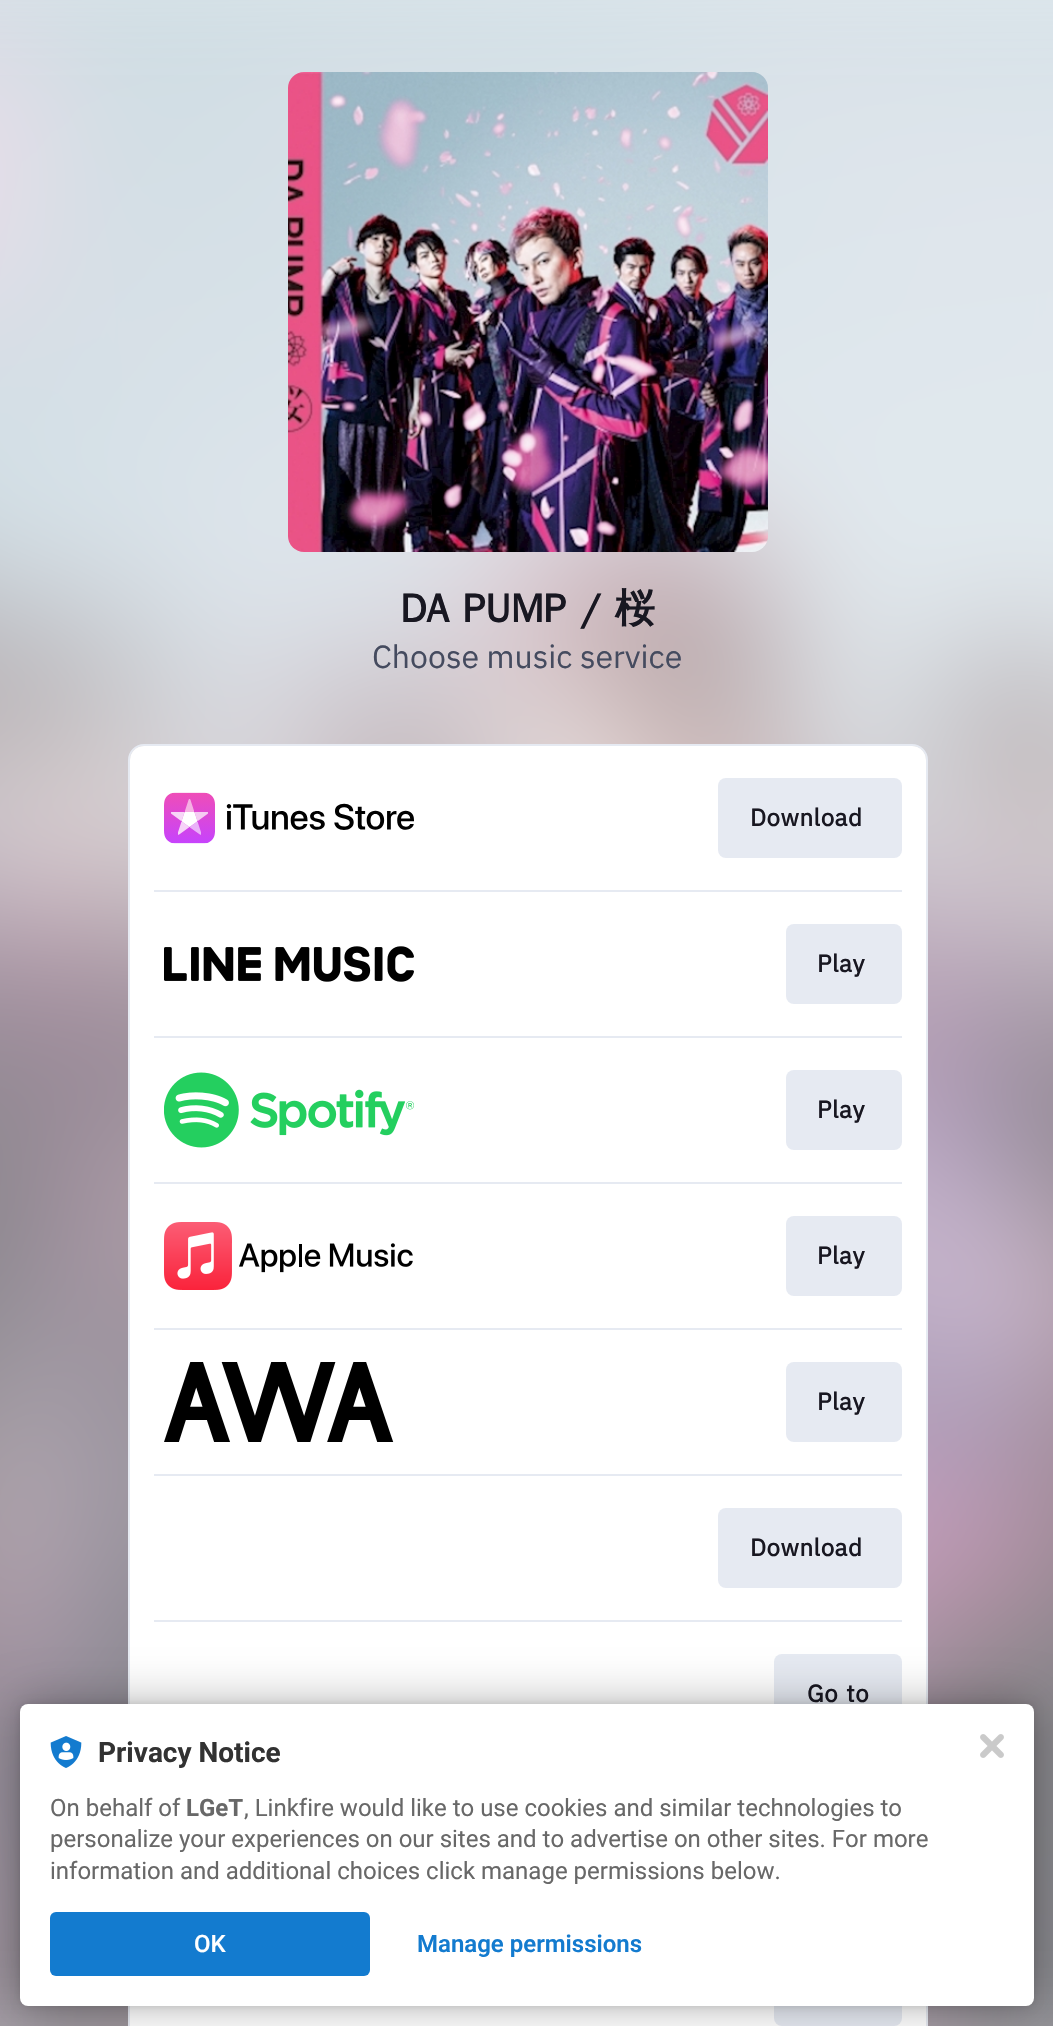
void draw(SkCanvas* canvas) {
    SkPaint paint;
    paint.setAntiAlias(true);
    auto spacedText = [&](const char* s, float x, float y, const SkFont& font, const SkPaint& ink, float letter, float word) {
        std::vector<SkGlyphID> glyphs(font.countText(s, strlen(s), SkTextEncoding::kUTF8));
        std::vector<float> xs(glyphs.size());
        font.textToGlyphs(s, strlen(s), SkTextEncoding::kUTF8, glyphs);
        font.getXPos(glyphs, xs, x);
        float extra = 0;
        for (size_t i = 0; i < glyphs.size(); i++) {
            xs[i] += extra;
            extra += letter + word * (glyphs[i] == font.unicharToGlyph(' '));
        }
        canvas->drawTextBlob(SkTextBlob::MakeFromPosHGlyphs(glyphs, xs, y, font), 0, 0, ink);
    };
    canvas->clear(0xFFFFFFFF);
    canvas->drawImageRect(SkImages::DeferredFromEncodedData(SkData::MakeFromFileName("img1.png")), SkRect::MakeXYWH(0, 0, 1053, 2026), SkSamplingOptions());
    canvas->drawImageRect(SkImages::DeferredFromEncodedData(SkData::MakeFromFileName("img2.png")), SkRect::MakeXYWH(288, 72, 480, 480), SkSamplingOptions());
    SkFont font1(fontMgr->matchFamilyStyle("WenQuanYi Zen Hei", SkFontStyle::Bold()), 40);
    font1.setSubpixel(true);
    paint.setColor(0xFF181721);
    spacedText("DA PUMP / 桜", 400, 622, font1, paint, 0, 2);
    SkFont font2(fontMgr->matchFamilyStyle("IBM Plex Sans", SkFontStyle::Normal()), 32);
    font2.setSubpixel(true);
    paint.setColor(0xFF454B5F);
    canvas->drawString("Choose music service", 372, 668, font2, paint);
    paint.setStyle(SkPaint::kStroke_Style);
    paint.setStrokeWidth(2);
    paint.setColor(0xFFE6EAF2);
    canvas->drawRoundRect(SkRect::MakeXYWH(129, 745, 798, 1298), 15, 15, paint);
    paint.setStyle(SkPaint::kFill_Style);
    paint.setColor(0xFFFFFFFF);
    canvas->drawRoundRect(SkRect::MakeXYWH(130, 746, 796, 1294), 14, 14, paint);
    canvas->drawImageRect(SkImages::DeferredFromEncodedData(SkData::MakeFromFileName("img3.png")), SkRect::MakeXYWH(164, 792, 250, 52), SkSamplingOptions());
    paint.setColor(0xFFE6EAF2);
    canvas->drawRoundRect(SkRect::MakeXYWH(718, 778, 184, 80), 8, 8, paint);
    SkFont font3(fontMgr->matchFamilyStyle("IBM Plex Sans", SkFontStyle::Bold()), 24);
    font3.setSubpixel(true);
    paint.setColor(0xFF181721);
    spacedText("Download", 750, 826, font3, paint, 0.5f, 0);
    paint.setColor(0xFFE6EAF2);
    canvas->drawRect(SkRect::MakeXYWH(154, 890, 748, 2), paint);
    canvas->drawImageRect(SkImages::DeferredFromEncodedData(SkData::MakeFromFileName("img4.png")), SkRect::MakeXYWH(164, 946, 250, 36), SkSamplingOptions());
    canvas->drawRoundRect(SkRect::MakeXYWH(786, 924, 116, 80), 8, 8, paint);
    paint.setColor(0xFF181721);
    spacedText("Play", 817, 972, font3, paint, 0.5f, 0);
    paint.setColor(0xFFE6EAF2);
    canvas->drawRect(SkRect::MakeXYWH(154, 1036, 748, 2), paint);
    canvas->drawImageRect(SkImages::DeferredFromEncodedData(SkData::MakeFromFileName("img5.png")), SkRect::MakeXYWH(164, 1072, 250, 76), SkSamplingOptions());
    canvas->drawRoundRect(SkRect::MakeXYWH(786, 1070, 116, 80), 8, 8, paint);
    paint.setColor(0xFF181721);
    spacedText("Play", 817, 1118, font3, paint, 0.5f, 0);
    paint.setColor(0xFFE6EAF2);
    canvas->drawRect(SkRect::MakeXYWH(154, 1182, 748, 2), paint);
    canvas->drawImageRect(SkImages::DeferredFromEncodedData(SkData::MakeFromFileName("img6.png")), SkRect::MakeXYWH(164, 1222, 249, 68), SkSamplingOptions());
    canvas->drawRoundRect(SkRect::MakeXYWH(786, 1216, 116, 80), 8, 8, paint);
    paint.setColor(0xFF181721);
    spacedText("Play", 817, 1264, font3, paint, 0.5f, 0);
    paint.setColor(0xFFE6EAF2);
    canvas->drawRect(SkRect::MakeXYWH(154, 1328, 748, 2), paint);
    canvas->drawImageRect(SkImages::DeferredFromEncodedData(SkData::MakeFromFileName("img7.png")), SkRect::MakeXYWH(164, 1362, 230, 80), SkSamplingOptions());
    canvas->drawRoundRect(SkRect::MakeXYWH(786, 1362, 116, 80), 8, 8, paint);
    paint.setColor(0xFF181721);
    spacedText("Play", 817, 1410, font3, paint, 0.5f, 0);
    paint.setColor(0xFFE6EAF2);
    canvas->drawRect(SkRect::MakeXYWH(154, 1474, 748, 2), paint);
    canvas->drawRoundRect(SkRect::MakeXYWH(718, 1508, 184, 80), 8, 8, paint);
    paint.setColor(0xFF181721);
    spacedText("Download", 750, 1556, font3, paint, 0.5f, 0);
    paint.setColor(0xFFE6EAF2);
    canvas->drawRect(SkRect::MakeXYWH(154, 1620, 748, 2), paint);
    canvas->drawRoundRect(SkRect::MakeXYWH(774, 1654, 128, 80), 8, 8, paint);
    paint.setColor(0xFF181721);
    spacedText("Go to", 807, 1702, font3, paint, 0.5f, 2);
    paint.setColor(0xFFE6EAF2);
    canvas->drawRoundRect(SkRect::MakeXYWH(774, 1946, 128, 80), 8, 8, paint);
    paint.setColor(0x1F000000);
    paint.setMaskFilter(SkMaskFilter::MakeBlur(kNormal_SkBlurStyle, 4));
    canvas->drawRoundRect(SkRect::MakeXYWH(20, 1704, 1014, 302), 8, 8, paint);
    paint.setMaskFilter(nullptr);
    paint.setColor(0x4D000000);
    paint.setMaskFilter(SkMaskFilter::MakeBlur(kNormal_SkBlurStyle, 24));
    canvas->drawRoundRect(SkRect::MakeXYWH(20, 1704, 1014, 302), 8, 8, paint);
    paint.setMaskFilter(nullptr);
    paint.setColor(0xFFFFFFFF);
    canvas->drawRoundRect(SkRect::MakeXYWH(20, 1704, 1014, 302), 8, 8, paint);
    canvas->drawImageRect(SkImages::DeferredFromEncodedData(SkData::MakeFromFileName("img8.png")), SkRect::MakeXYWH(50, 1736, 32, 32), SkSamplingOptions());
    SkFont font4(fontMgr->matchFamilyStyle("Roboto", SkFontStyle::Bold()), 28);
    font4.setSubpixel(true);
    paint.setColor(0xFF323232);
    canvas->drawString("Privacy Notice", 98, 1762, font4, paint);
    SkFont font5(fontMgr->matchFamilyStyle("Roboto", SkFontStyle::Normal()), 24);
    font5.setSubpixel(true);
    paint.setColor(0xFF686868);
    canvas->drawString("On behalf of", 50, 1816, font5, paint);
    SkFont font6(fontMgr->matchFamilyStyle("Roboto", SkFontStyle::Bold()), 24);
    font6.setSubpixel(true);
    canvas->drawString("LGeT", 186, 1816, font6, paint);
    canvas->drawString(", Linkfire would like to use cookies and similar technologies to", 244, 1816, font5, paint);
    canvas->drawString("personalize your experiences on our sites and to advertise on other sites. For more", 50, 1847, font5, paint);
    canvas->drawString("information and additional choices click manage permissions below.", 50, 1879, font5, paint);
    paint.setColor(0xFF137BCF);
    canvas->drawRoundRect(SkRect::MakeXYWH(50, 1912, 320, 64), 6, 6, paint);
    SkFont font7(fontMgr->matchFamilyStyle("Roboto", SkFontStyle(500, SkFontStyle::kNormal_Width, SkFontStyle::kUpright_Slant)), 24);
    font7.setSubpixel(true);
    paint.setColor(0xFFFFFFFF);
    canvas->drawString("OK", 194, 1952, font7, paint);
    SkFont font8(fontMgr->matchFamilyStyle("Roboto", SkFontStyle(600, SkFontStyle::kNormal_Width, SkFontStyle::kUpright_Slant)), 24);
    font8.setSubpixel(true);
    paint.setColor(0xFF137BCF);
    canvas->drawString("Manage permissions", 417, 1952, font8, paint);
    canvas->drawImageRect(SkImages::DeferredFromEncodedData(SkData::MakeFromFileName("img9.png")), SkRect::MakeXYWH(980, 1734, 24, 24), SkSamplingOptions());
}
